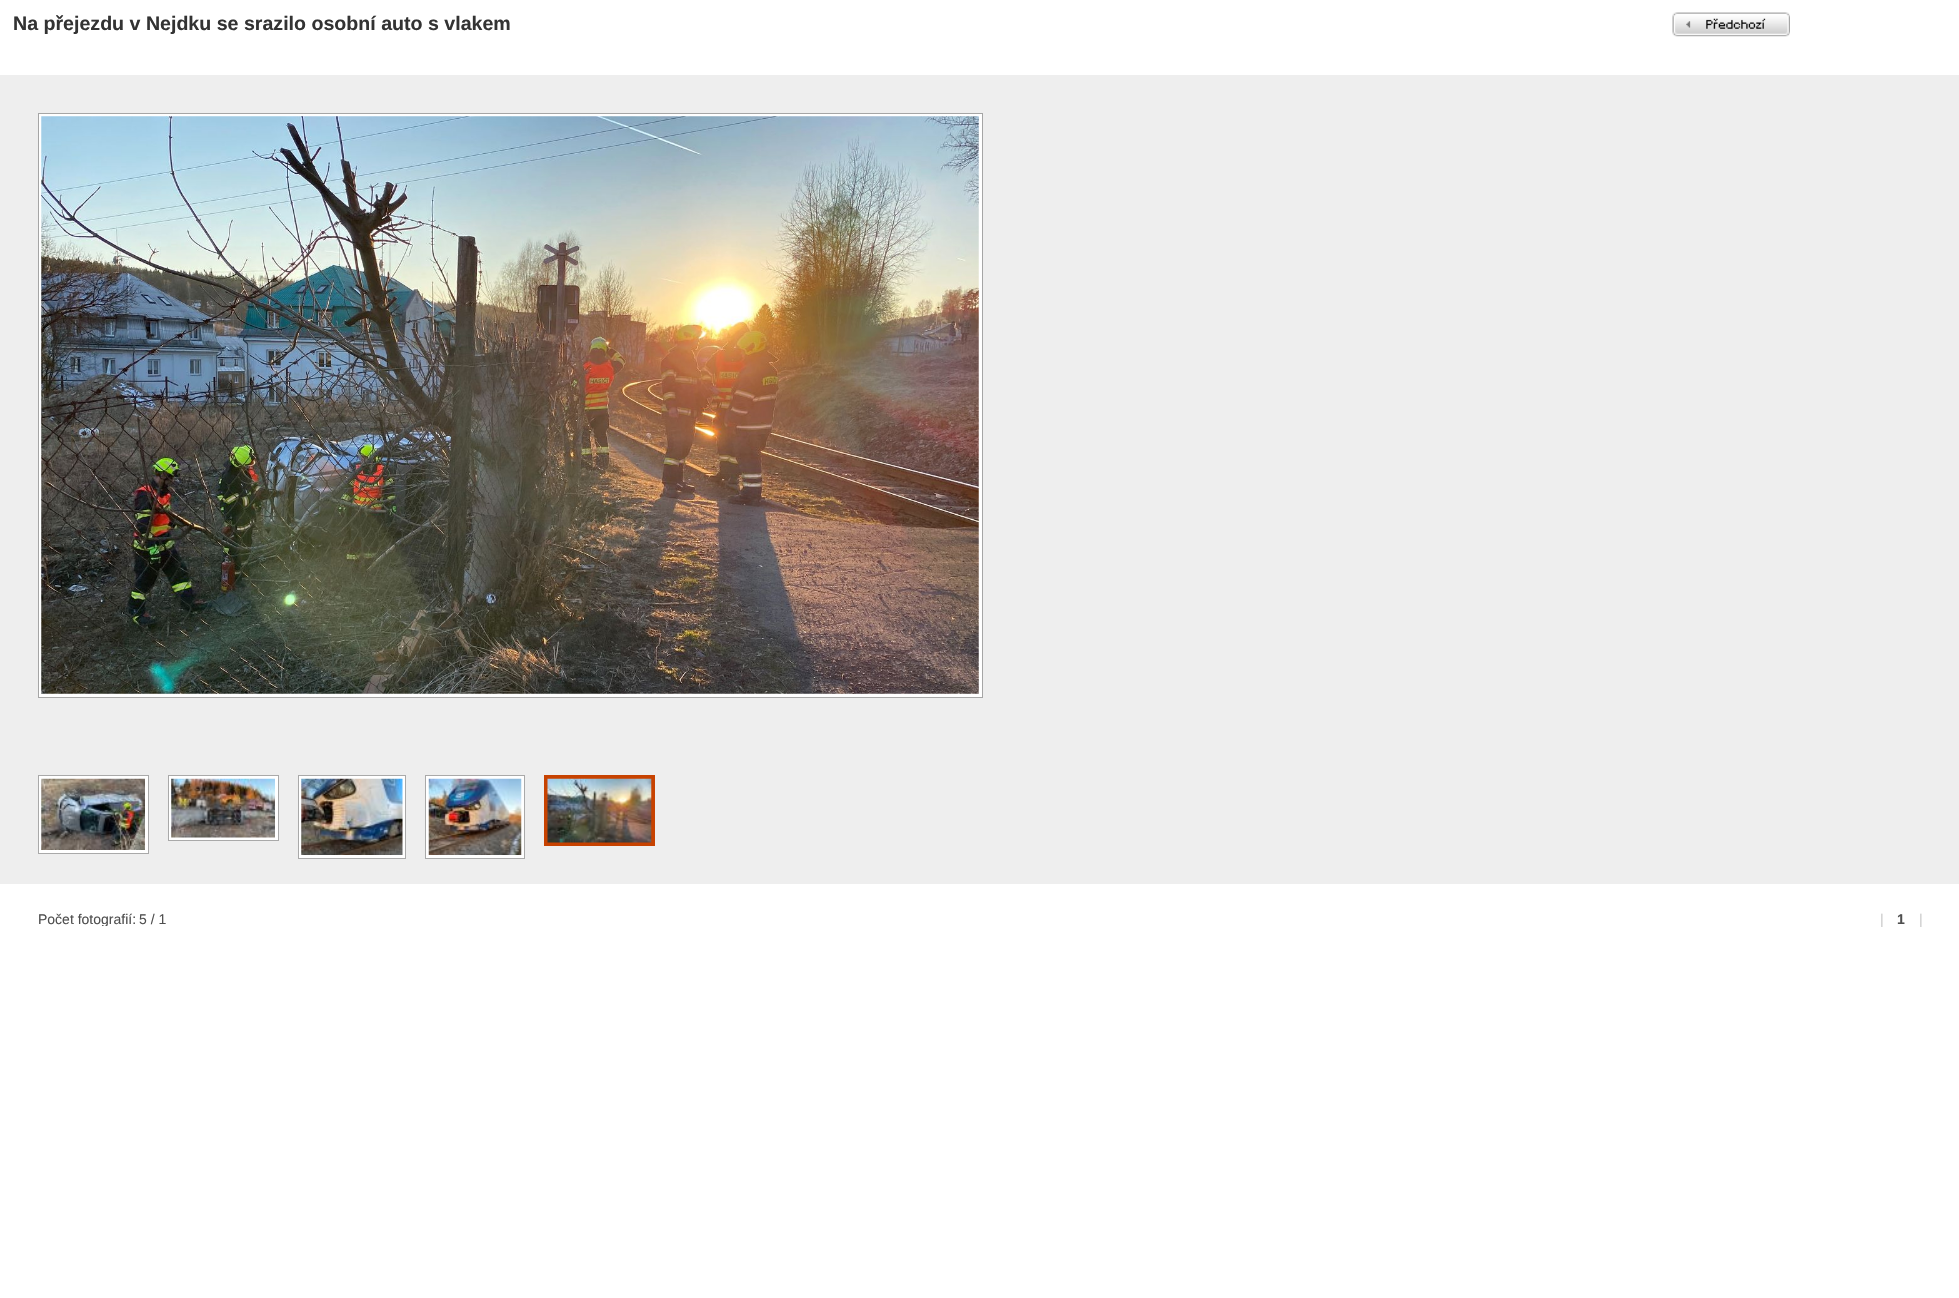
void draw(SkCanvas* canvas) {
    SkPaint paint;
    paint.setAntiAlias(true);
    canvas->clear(0xFFFFFFFF);
    paint.setColor(0xFFEEEEEE);
    canvas->drawRect(SkRect::MakeXYWH(0, 75, 1959, 809), paint);
    canvas->drawImageRect(SkImages::DeferredFromEncodedData(SkData::MakeFromFileName("img1.png")), SkRect::MakeXYWH(1672, 12, 118, 25), SkSamplingOptions());
    paint.setColor(0xFFFFFFFF);
    canvas->drawRect(SkRect::MakeXYWH(38.5f, 113.5f, 944, 584), paint);
    paint.setStyle(SkPaint::kStroke_Style);
    paint.setStrokeWidth(1);
    paint.setColor(0xFFA5A5A5);
    canvas->drawRect(SkRect::MakeXYWH(38.5f, 113.5f, 944, 584), paint);
    canvas->drawImageRect(SkImages::DeferredFromEncodedData(SkData::MakeFromFileName("img2.png")), SkRect::MakeXYWH(41, 116, 938, 578), SkSamplingOptions());
    paint.setStyle(SkPaint::kFill_Style);
    paint.setColor(0xFFFFFFFF);
    canvas->drawRect(SkRect::MakeXYWH(38.5f, 775.5f, 110, 78), paint);
    paint.setStyle(SkPaint::kStroke_Style);
    paint.setColor(0xFFA9A9A9);
    canvas->drawRect(SkRect::MakeXYWH(38.5f, 775.5f, 110, 78), paint);
    canvas->drawImageRect(SkImages::DeferredFromEncodedData(SkData::MakeFromFileName("img3.png")), SkRect::MakeXYWH(41, 778, 104, 72), SkSamplingOptions());
    paint.setStyle(SkPaint::kFill_Style);
    paint.setColor(0xFFFFFFFF);
    canvas->drawRect(SkRect::MakeXYWH(168.5f, 775.5f, 110, 65), paint);
    paint.setStyle(SkPaint::kStroke_Style);
    paint.setColor(0xFFA9A9A9);
    canvas->drawRect(SkRect::MakeXYWH(168.5f, 775.5f, 110, 65), paint);
    canvas->drawImageRect(SkImages::DeferredFromEncodedData(SkData::MakeFromFileName("img4.png")), SkRect::MakeXYWH(171, 778, 104, 60), SkSamplingOptions());
    paint.setStyle(SkPaint::kFill_Style);
    paint.setColor(0xFFFFFFFF);
    canvas->drawRect(SkRect::MakeXYWH(298.5f, 775.5f, 107, 83), paint);
    paint.setStyle(SkPaint::kStroke_Style);
    paint.setColor(0xFFA9A9A9);
    canvas->drawRect(SkRect::MakeXYWH(298.5f, 775.5f, 107, 83), paint);
    canvas->drawImageRect(SkImages::DeferredFromEncodedData(SkData::MakeFromFileName("img5.png")), SkRect::MakeXYWH(301, 778, 102, 77), SkSamplingOptions());
    paint.setStyle(SkPaint::kFill_Style);
    paint.setColor(0xFFFFFFFF);
    canvas->drawRect(SkRect::MakeXYWH(425.5f, 775.5f, 99, 83), paint);
    paint.setStyle(SkPaint::kStroke_Style);
    paint.setColor(0xFFA9A9A9);
    canvas->drawRect(SkRect::MakeXYWH(425.5f, 775.5f, 99, 83), paint);
    canvas->drawImageRect(SkImages::DeferredFromEncodedData(SkData::MakeFromFileName("img6.png")), SkRect::MakeXYWH(428, 778, 94, 77), SkSamplingOptions());
    paint.setStrokeWidth(4);
    paint.setColor(0xFFC74200);
    canvas->drawRect(SkRect::MakeXYWH(546, 777, 107, 67), paint);
    canvas->drawImageRect(SkImages::DeferredFromEncodedData(SkData::MakeFromFileName("img7.png")), SkRect::MakeXYWH(547, 778, 105, 65), SkSamplingOptions());
    SkFont font1(fontMgr->matchFamilyStyle("Liberation Sans", SkFontStyle::Bold()), 19.6f);
    font1.setSubpixel(true);
    paint.setStyle(SkPaint::kFill_Style);
    paint.setColor(0xFF333333);
    canvas->drawString("Na přejezdu v Nejdku se srazilo osobní auto s vlakem", 13, 30, font1, paint);
    canvas->save();
    canvas->clipRect(SkRect::MakeXYWH(0, 911, 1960, 15));
    SkFont font2(fontMgr->matchFamilyStyle("Liberation Sans", SkFontStyle::Normal()), 14);
    font2.setSubpixel(true);
    paint.setColor(0xFF4F4F4F);
    canvas->drawString("Počet fotografií:", 38, 924, font2, paint);
    canvas->restore();
    canvas->drawString("5 / 1", 139, 924, font2, paint);
    paint.setColor(0xFFCCCCCC);
    canvas->drawString("|", 1880, 924, font2, paint);
    SkFont font3(fontMgr->matchFamilyStyle("Liberation Sans", SkFontStyle::Bold()), 14);
    font3.setSubpixel(true);
    paint.setColor(0xFF4F4F4F);
    canvas->drawString("1", 1897, 924, font3, paint);
    paint.setColor(0xFFCCCCCC);
    canvas->drawString("|", 1919, 924, font2, paint);
}
